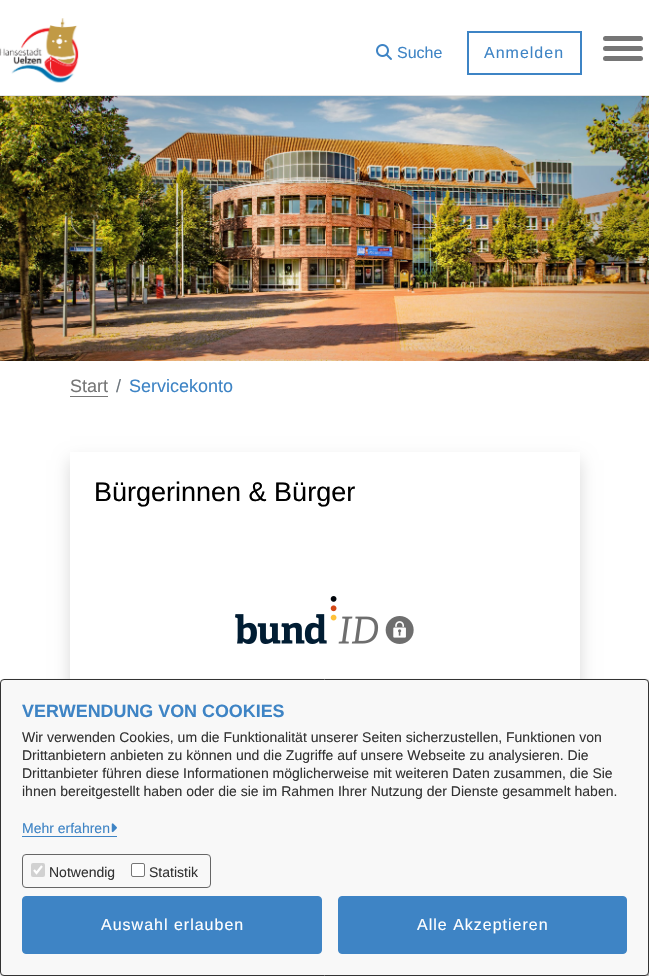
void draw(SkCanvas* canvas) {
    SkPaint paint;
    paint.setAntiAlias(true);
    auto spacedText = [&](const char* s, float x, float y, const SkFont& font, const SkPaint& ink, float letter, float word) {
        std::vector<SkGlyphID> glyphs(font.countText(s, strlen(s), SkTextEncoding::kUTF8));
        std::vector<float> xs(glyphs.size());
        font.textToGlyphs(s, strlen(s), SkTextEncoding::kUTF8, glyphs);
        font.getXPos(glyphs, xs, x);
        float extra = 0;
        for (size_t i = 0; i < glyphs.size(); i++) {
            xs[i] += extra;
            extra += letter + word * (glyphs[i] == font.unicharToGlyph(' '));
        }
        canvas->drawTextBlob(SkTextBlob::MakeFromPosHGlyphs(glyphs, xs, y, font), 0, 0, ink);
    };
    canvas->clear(0xFFFFFFFF);
    paint.setColor(0xFFE6E6E6);
    canvas->drawRect(SkRect::MakeXYWH(0, 95, 649, 1), paint);
    canvas->drawImageRect(SkImages::DeferredFromEncodedData(SkData::MakeFromFileName("img1.png")), SkRect::MakeXYWH(0, 18, 79, 65), SkSamplingOptions());
    canvas->drawImageRect(SkImages::DeferredFromEncodedData(SkData::MakeFromFileName("img2.png")), SkRect::MakeXYWH(376, 44, 16, 16), SkSamplingOptions());
    SkFont font1(fontMgr->matchFamilyStyle("Liberation Sans", SkFontStyle::Normal()), 16);
    font1.setSubpixel(true);
    paint.setColor(0xFF3E84C5);
    canvas->drawString("Suche", 397, 58, font1, paint);
    paint.setStyle(SkPaint::kStroke_Style);
    paint.setStrokeWidth(2);
    canvas->drawRect(SkRect::MakeXYWH(468, 32, 113, 42), paint);
    paint.setStyle(SkPaint::kFill_Style);
    spacedText("Anmelden", 484, 58, font1, paint, 1, 0);
    paint.setColor(0xFF767676);
    canvas->drawRoundRect(SkRect::MakeXYWH(603, 46, 40, 5), 2.5f, 2.5f, paint);
    canvas->drawRoundRect(SkRect::MakeXYWH(603, 36, 40, 5), 2.5f, 2.5f, paint);
    canvas->drawRoundRect(SkRect::MakeXYWH(603, 56, 40, 5), 2.5f, 2.5f, paint);
    canvas->drawImageRect(SkImages::DeferredFromEncodedData(SkData::MakeFromFileName("img3.png")), SkRect::MakeXYWH(0, 96, 649, 265), SkSamplingOptions());
    SkFont font2(fontMgr->matchFamilyStyle("Liberation Sans", SkFontStyle::Normal()), 18);
    font2.setSubpixel(true);
    canvas->drawString("Start", 70, 392, font2, paint);
    canvas->drawRect(SkRect::MakeXYWH(70, 396, 38, 1), paint);
    paint.setColor(0xFF6C757D);
    canvas->drawString("/", 116, 392, font2, paint);
    paint.setColor(0xFF3E84C5);
    canvas->drawString("Servicekonto", 129, 392, font2, paint);
    canvas->save();
    canvas->clipPath(SkPathBuilder(SkPathFillType::kEvenOdd).moveTo(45, 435).lineTo(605, 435).lineTo(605, 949).lineTo(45, 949).close().moveTo(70, 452).lineTo(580, 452).lineTo(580, 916).lineTo(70, 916).close().detach(), true);
    paint.setColor(0x26000000);
    paint.setMaskFilter(SkMaskFilter::MakeBlur(kNormal_SkBlurStyle, 8));
    canvas->drawRect(SkRect::MakeXYWH(70, 460, 510, 464), paint);
    paint.setMaskFilter(nullptr);
    canvas->restore();
    SkFont font3(fontMgr->matchFamilyStyle("Liberation Sans", SkFontStyle::Normal()), 27);
    font3.setSubpixel(true);
    paint.setColor(0xFF000000);
    canvas->drawString("Bürgerinnen & Bürger", 94, 501, font3, paint);
    canvas->drawImageRect(SkImages::DeferredFromEncodedData(SkData::MakeFromFileName("img4.png")), SkRect::MakeXYWH(235, 596, 179, 48), SkSamplingOptions());
    paint.setColor(0x54000000);
    paint.setMaskFilter(SkMaskFilter::MakeBlur(kNormal_SkBlurStyle, 1));
    canvas->drawRoundRect(SkRect::MakeXYWH(1, 680, 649, 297), 4, 4, paint);
    paint.setMaskFilter(nullptr);
    paint.setColor(0xFFF8F8F8);
    canvas->drawRoundRect(SkRect::MakeXYWH(0.5f, 679.5f, 648, 296), 3.5f, 3.5f, paint);
    paint.setStyle(SkPaint::kStroke_Style);
    paint.setStrokeWidth(1);
    paint.setColor(0xFF333333);
    canvas->drawRoundRect(SkRect::MakeXYWH(0.5f, 679.5f, 648, 296), 3.5f, 3.5f, paint);
    SkFont font4(fontMgr->matchFamilyStyle("Liberation Sans", SkFontStyle::Bold()), 17.9f);
    font4.setSubpixel(true);
    paint.setStyle(SkPaint::kFill_Style);
    paint.setColor(0xFF3E84C5);
    canvas->drawString("VERWENDUNG VON COOKIES", 22, 717, font4, paint);
    SkFont font5(fontMgr->matchFamilyStyle("Liberation Sans", SkFontStyle::Normal()), 14);
    font5.setSubpixel(true);
    paint.setColor(0xFF333333);
    canvas->drawString("Wir verwenden Cookies, um die Funktionalität unserer Seiten sicherzustellen, Funktionen von", 22, 742, font5, paint);
    canvas->drawString("Drittanbietern anbieten zu können und die Zugriffe auf unsere Webseite zu analysieren. Die", 22, 760, font5, paint);
    canvas->drawString("Drittanbieter führen diese Informationen möglicherweise mit weiteren Daten zusammen, die Sie", 22, 778, font5, paint);
    canvas->drawString("ihnen bereitgestellt haben oder die sie im Rahmen Ihrer Nutzung der Dienste gesammelt haben.", 22, 796, font5, paint);
    paint.setColor(0xFF3E84C5);
    canvas->drawString("Mehr erfahren", 22, 833, font5, paint);
    canvas->drawRect(SkRect::MakeXYWH(22, 836, 95, 1), paint);
    canvas->drawImageRect(SkImages::DeferredFromEncodedData(SkData::MakeFromFileName("img5.png")), SkRect::MakeXYWH(111, 823, 6, 10), SkSamplingOptions());
    paint.setStyle(SkPaint::kStroke_Style);
    paint.setColor(0xFF666666);
    canvas->drawRoundRect(SkRect::MakeXYWH(22.5f, 854.5f, 188, 33), 3.5f, 3.5f, paint);
    paint.setStyle(SkPaint::kFill_Style);
    paint.setColor(0xFFD1D1D1);
    canvas->drawRoundRect(SkRect::MakeXYWH(31, 863, 14, 14), 2, 2, paint);
    paint.setStyle(SkPaint::kStroke_Style);
    paint.setStrokeWidth(2.2f);
    paint.setColor(0xFFFFFFFF);
    canvas->drawPath(SkPathBuilder().moveTo(34, 870).lineTo(36.5f, 873).lineTo(42, 866).detach(), paint);
    paint.setStyle(SkPaint::kFill_Style);
    paint.setColor(0xFF333333);
    canvas->drawString("Notwendig", 49, 877, font5, paint);
    paint.setColor(0xFFFFFFFF);
    canvas->drawRoundRect(SkRect::MakeXYWH(131.5f, 863.5f, 13, 13), 1.5f, 1.5f, paint);
    paint.setStyle(SkPaint::kStroke_Style);
    paint.setStrokeWidth(1);
    paint.setColor(0xFF767676);
    canvas->drawRoundRect(SkRect::MakeXYWH(131.5f, 863.5f, 13, 13), 1.5f, 1.5f, paint);
    paint.setStyle(SkPaint::kFill_Style);
    paint.setColor(0xFF333333);
    canvas->drawString("Statistik", 149, 877, font5, paint);
    paint.setColor(0xFF3E84C5);
    canvas->drawRoundRect(SkRect::MakeXYWH(22.5f, 896.5f, 299, 57), 3.5f, 3.5f, paint);
    paint.setStyle(SkPaint::kStroke_Style);
    canvas->drawRoundRect(SkRect::MakeXYWH(22.5f, 896.5f, 299, 57), 3.5f, 3.5f, paint);
    paint.setStyle(SkPaint::kFill_Style);
    paint.setColor(0xFFFFFFFF);
    spacedText("Auswahl erlauben", 101, 930, font1, paint, 1, 0);
    paint.setColor(0xFF3E84C5);
    canvas->drawRoundRect(SkRect::MakeXYWH(338.5f, 896.5f, 288, 57), 3.5f, 3.5f, paint);
    paint.setStyle(SkPaint::kStroke_Style);
    canvas->drawRoundRect(SkRect::MakeXYWH(338.5f, 896.5f, 288, 57), 3.5f, 3.5f, paint);
    paint.setStyle(SkPaint::kFill_Style);
    paint.setColor(0xFFFFFFFF);
    spacedText("Alle Akzeptieren", 417, 930, font1, paint, 1, 0);
}
